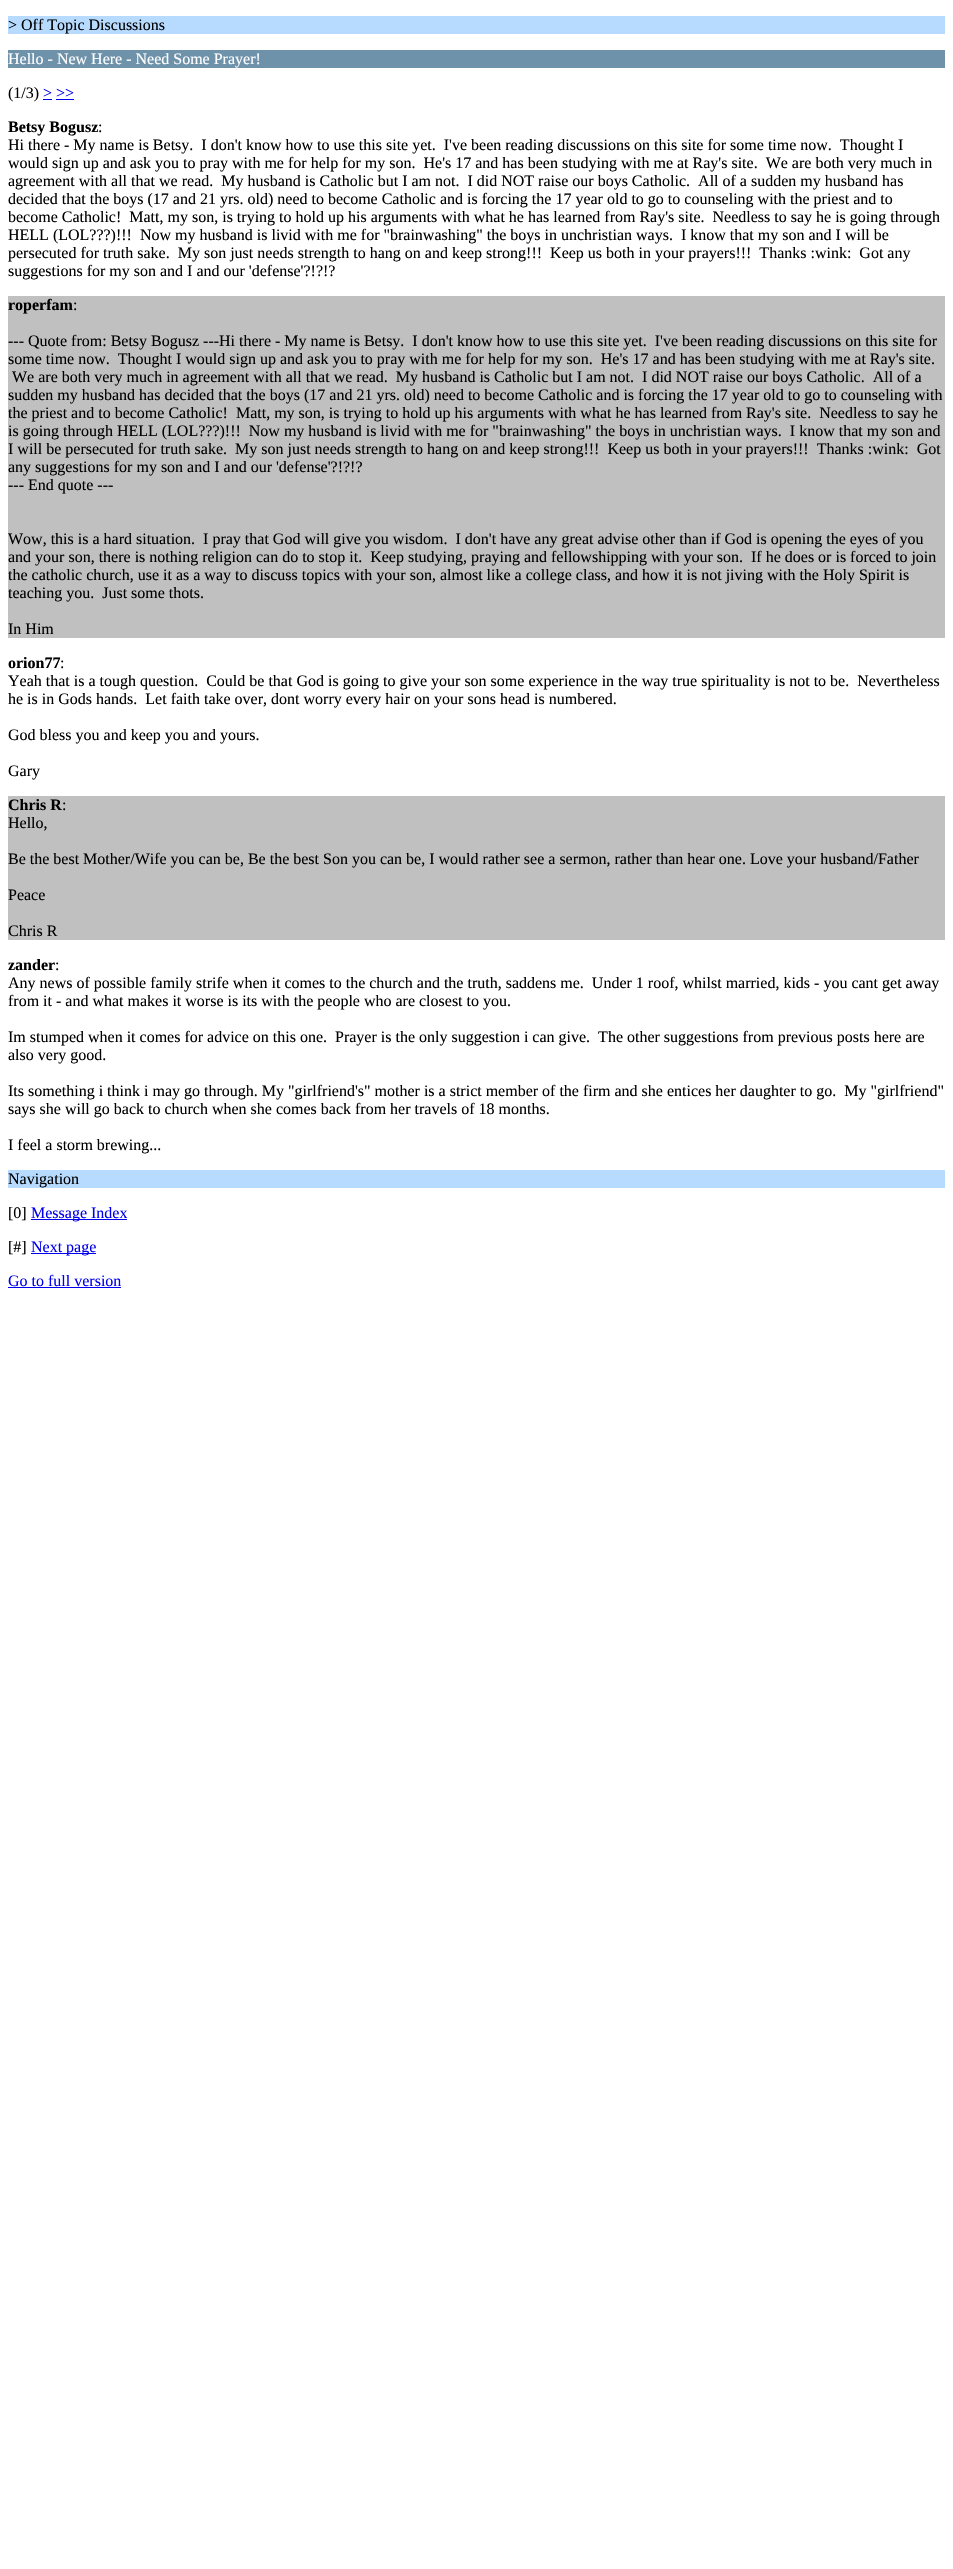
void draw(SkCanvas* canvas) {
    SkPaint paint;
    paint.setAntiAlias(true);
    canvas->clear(0xFFFFFFFF);
    paint.setColor(0xFFB6DBFF);
    canvas->drawRect(SkRect::MakeXYWH(8, 16, 937, 18), paint);
    SkFont font1(fontMgr->matchFamilyStyle("Liberation Serif", SkFontStyle::Normal()), 16);
    font1.setSubpixel(true);
    paint.setColor(0xFF000000);
    canvas->drawString("> Off Topic Discussions", 8, 30, font1, paint);
    paint.setColor(0xFF6D92AA);
    canvas->drawRect(SkRect::MakeXYWH(8, 50, 937, 18), paint);
    paint.setColor(0xFFFFFFFF);
    canvas->drawString("Hello - New Here - Need Some Prayer!", 8, 64, font1, paint);
    paint.setColor(0xFF000000);
    canvas->drawString("(1/3)", 8, 98, font1, paint);
    paint.setColor(0xFF0000EE);
    canvas->drawString("> >>", 43, 98, font1, paint);
    canvas->drawRect(SkRect::MakeXYWH(43, 99, 9, 1), paint);
    canvas->drawRect(SkRect::MakeXYWH(56, 99, 18, 1), paint);
    SkFont font2(fontMgr->matchFamilyStyle("Liberation Serif", SkFontStyle::Bold()), 16);
    font2.setSubpixel(true);
    paint.setColor(0xFF000000);
    canvas->drawString("Betsy Bogusz", 8, 132, font2, paint);
    canvas->drawString(":", 98, 132, font1, paint);
    canvas->drawString("Hi there - My name is Betsy.  I don't know how to use this site yet.  I've been reading discussions on this site for some time now.  Thought I", 8, 150, font1, paint);
    canvas->drawString("would sign up and ask you to pray with me for help for my son.  He's 17 and has been studying with me at Ray's site.  We are both very much in", 8, 168, font1, paint);
    canvas->drawString("agreement with all that we read.  My husband is Catholic but I am not.  I did NOT raise our boys Catholic.  All of a sudden my husband has", 8, 186, font1, paint);
    canvas->drawString("decided that the boys (17 and 21 yrs. old) need to become Catholic and is forcing the 17 year old to go to counseling with the priest and to", 8, 204, font1, paint);
    canvas->drawString("become Catholic!  Matt, my son, is trying to hold up his arguments with what he has learned from Ray's site.  Needless to say he is going through", 8, 222, font1, paint);
    canvas->drawString("HELL (LOL?\077?)!!!  Now my husband is livid with me for \"brainwashing\" the boys in unchristian ways.  I know that my son and I will be", 8, 240, font1, paint);
    canvas->drawString("persecuted for truth sake.  My son just needs strength to hang on and keep strong!!!  Keep us both in your prayers!!!  Thanks :wink:  Got any", 8, 258, font1, paint);
    canvas->drawString("suggestions for my son and I and our 'defense'?!?!?", 8, 276, font1, paint);
    paint.setColor(0xFFC0C0C0);
    canvas->drawRect(SkRect::MakeXYWH(8, 296, 937, 342), paint);
    paint.setColor(0xFF000000);
    canvas->drawString("roperfam", 8, 310, font2, paint);
    canvas->drawString(":", 73, 310, font1, paint);
    canvas->drawString("--- Quote from: Betsy Bogusz ---Hi there - My name is Betsy.  I don't know how to use this site yet.  I've been reading discussions on this site for", 8, 346, font1, paint);
    canvas->drawString("some time now.  Thought I would sign up and ask you to pray with me for help for my son.  He's 17 and has been studying with me at Ray's site.", 8, 364, font1, paint);
    canvas->drawString("We are both very much in agreement with all that we read.  My husband is Catholic but I am not.  I did NOT raise our boys Catholic.  All of a", 12, 382, font1, paint);
    canvas->drawString("sudden my husband has decided that the boys (17 and 21 yrs. old) need to become Catholic and is forcing the 17 year old to go to counseling with", 8, 400, font1, paint);
    canvas->drawString("the priest and to become Catholic!  Matt, my son, is trying to hold up his arguments with what he has learned from Ray's site.  Needless to say he", 8, 418, font1, paint);
    canvas->drawString("is going through HELL (LOL?\077?)!!!  Now my husband is livid with me for \"brainwashing\" the boys in unchristian ways.  I know that my son and", 8, 436, font1, paint);
    canvas->drawString("I will be persecuted for truth sake.  My son just needs strength to hang on and keep strong!!!  Keep us both in your prayers!!!  Thanks :wink:  Got", 8, 454, font1, paint);
    canvas->drawString("any suggestions for my son and I and our 'defense'?!?!?", 8, 472, font1, paint);
    canvas->drawString("--- End quote ---", 8, 490, font1, paint);
    canvas->drawString("Wow, this is a hard situation.  I pray that God will give you wisdom.  I don't have any great advise other than if God is opening the eyes of you", 8, 544, font1, paint);
    canvas->drawString("and your son, there is nothing religion can do to stop it.  Keep studying, praying and fellowshipping with your son.  If he does or is forced to join", 8, 562, font1, paint);
    canvas->drawString("the catholic church, use it as a way to discuss topics with your son, almost like a college class, and how it is not jiving with the Holy Spirit is", 8, 580, font1, paint);
    canvas->drawString("teaching you.  Just some thots.", 8, 598, font1, paint);
    canvas->drawString("In Him", 8, 634, font1, paint);
    canvas->drawString("orion77", 8, 668, font2, paint);
    canvas->drawString(":", 60, 668, font1, paint);
    canvas->drawString("Yeah that is a tough question.  Could be that God is going to give your son some experience in the way true spirituality is not to be.  Nevertheless", 8, 686, font1, paint);
    canvas->drawString("he is in Gods hands.  Let faith take over, dont worry every hair on your sons head is numbered.", 8, 704, font1, paint);
    canvas->drawString("God bless you and keep you and yours.", 8, 740, font1, paint);
    canvas->drawString("Gary", 8, 776, font1, paint);
    paint.setColor(0xFFC0C0C0);
    canvas->drawRect(SkRect::MakeXYWH(8, 796, 937, 144), paint);
    paint.setColor(0xFF000000);
    canvas->drawString("Chris R", 8, 810, font2, paint);
    canvas->drawString(":", 62, 810, font1, paint);
    canvas->drawString("Hello,", 8, 828, font1, paint);
    canvas->drawString("Be the best Mother/Wife you can be, Be the best Son you can be, I would rather see a sermon, rather than hear one. Love your husband/Father", 8, 864, font1, paint);
    canvas->drawString("Peace", 8, 900, font1, paint);
    canvas->drawString("Chris R", 8, 936, font1, paint);
    canvas->drawString("zander", 8, 970, font2, paint);
    canvas->drawString(":", 55, 970, font1, paint);
    canvas->drawString("Any news of possible family strife when it comes to the church and the truth, saddens me.  Under 1 roof, whilst married, kids - you cant get away", 8, 988, font1, paint);
    canvas->drawString("from it - and what makes it worse is its with the people who are closest to you.", 8, 1006, font1, paint);
    canvas->drawString("Im stumped when it comes for advice on this one.  Prayer is the only suggestion i can give.  The other suggestions from previous posts here are", 8, 1042, font1, paint);
    canvas->drawString("also very good.", 8, 1060, font1, paint);
    canvas->drawString("Its something i think i may go through. My \"girlfriend's\" mother is a strict member of the firm and she entices her daughter to go.  My \"girlfriend\"", 8, 1096, font1, paint);
    canvas->drawString("says she will go back to church when she comes back from her travels of 18 months.", 8, 1114, font1, paint);
    canvas->drawString("I feel a storm brewing...", 8, 1150, font1, paint);
    paint.setColor(0xFFB6DBFF);
    canvas->drawRect(SkRect::MakeXYWH(8, 1170, 937, 18), paint);
    paint.setColor(0xFF000000);
    canvas->drawString("Navigation", 8, 1184, font1, paint);
    canvas->drawString("[0]", 8, 1218, font1, paint);
    paint.setColor(0xFF0000EE);
    canvas->drawRect(SkRect::MakeXYWH(31, 1219, 96, 1), paint);
    canvas->drawString("Message Index", 31, 1218, font1, paint);
    paint.setColor(0xFF000000);
    canvas->drawString("[#]", 8, 1252, font1, paint);
    paint.setColor(0xFF0000EE);
    canvas->drawRect(SkRect::MakeXYWH(31, 1253, 65, 1), paint);
    canvas->drawString("Next page", 31, 1252, font1, paint);
    canvas->drawString("Go to full version", 8, 1286, font1, paint);
    canvas->drawRect(SkRect::MakeXYWH(8, 1287, 113, 1), paint);
}
